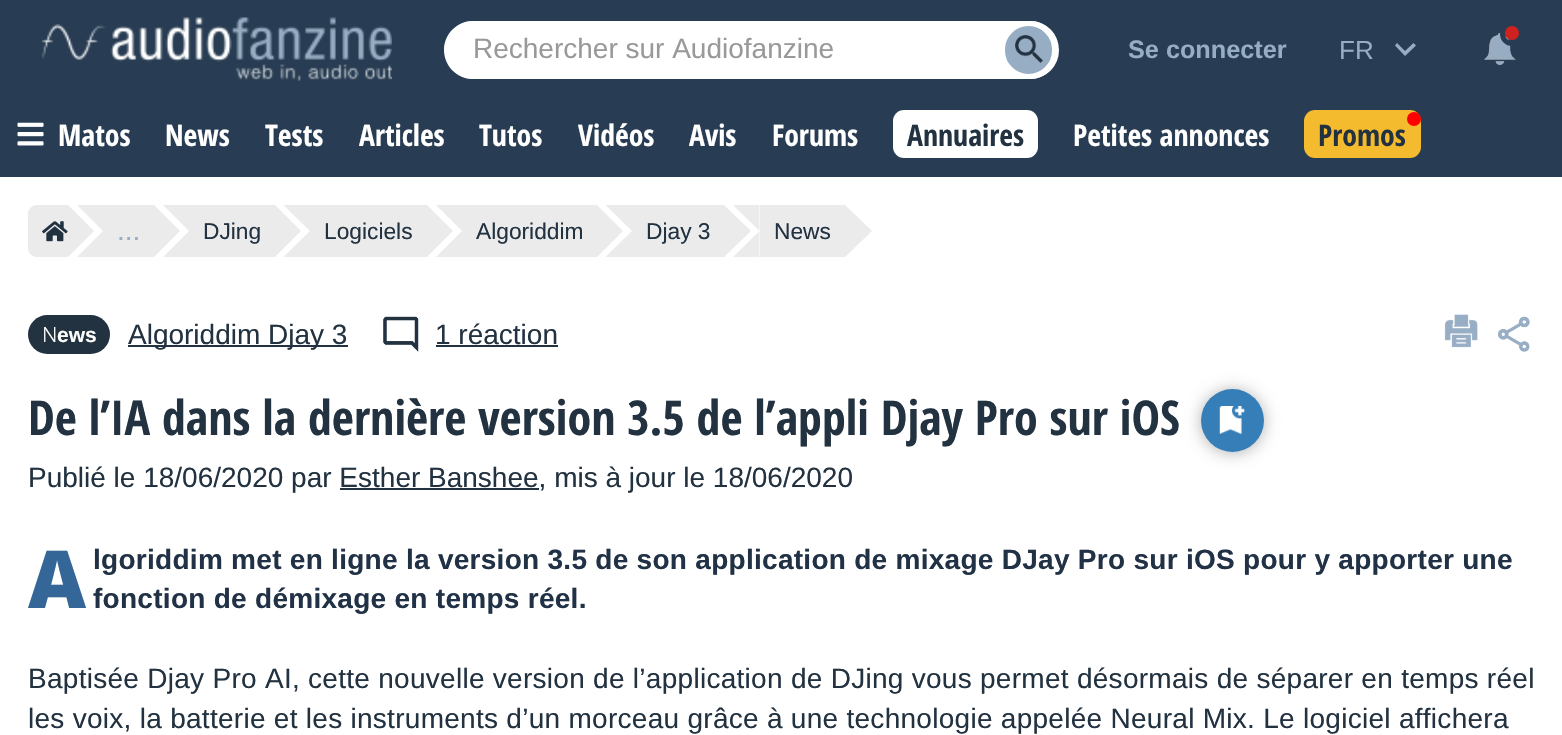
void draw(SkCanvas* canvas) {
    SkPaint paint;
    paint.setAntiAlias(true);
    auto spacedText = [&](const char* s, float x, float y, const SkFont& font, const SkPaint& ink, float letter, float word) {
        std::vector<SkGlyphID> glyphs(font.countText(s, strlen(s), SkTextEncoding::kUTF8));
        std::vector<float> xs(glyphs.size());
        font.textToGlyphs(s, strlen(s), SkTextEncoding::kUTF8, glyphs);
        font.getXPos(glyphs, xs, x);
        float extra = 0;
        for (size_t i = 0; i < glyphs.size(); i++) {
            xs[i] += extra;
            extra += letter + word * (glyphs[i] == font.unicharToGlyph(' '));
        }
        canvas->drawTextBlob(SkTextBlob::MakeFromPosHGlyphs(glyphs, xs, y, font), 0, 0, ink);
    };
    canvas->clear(0xFFFFFFFF);
    paint.setColor(0xFF283D53);
    canvas->drawRect(SkRect::MakeXYWH(0, 0, 1562, 177), paint);
    canvas->drawImageRect(SkImages::DeferredFromEncodedData(SkData::MakeFromFileName("img1.png")), SkRect::MakeXYWH(42, 17, 350, 64), SkSamplingOptions());
    paint.setColor(0xFFFFFFFF);
    canvas->drawRoundRect(SkRect::MakeXYWH(445, 21, 614, 58), 29, 29, paint);
    canvas->drawPath(SkPathBuilder(SkPathFillType::kEvenOdd).moveTo(473, 21).lineTo(1030, 21).cubicTo(1046, 21, 1059, 34, 1059, 50).cubicTo(1059, 66, 1046, 79, 1030, 79).lineTo(473, 79).cubicTo(457, 79, 444, 66, 444, 50).cubicTo(444, 34, 457, 21, 473, 21).close().moveTo(473, 23).lineTo(1030, 23).cubicTo(1046, 23, 1059, 35, 1059, 50).cubicTo(1059, 65, 1046, 77, 1030, 77).lineTo(473, 77).cubicTo(458, 77, 446, 65, 446, 50).cubicTo(446, 35, 458, 23, 473, 23).close().detach(), paint);
    SkFont font1(fontMgr->matchFamilyStyle("Liberation Sans", SkFontStyle::Normal()), 28);
    font1.setSubpixel(true);
    paint.setColor(0xFF999999);
    canvas->drawString("Rechercher sur Audiofanzine", 473, 58, font1, paint);
    paint.setColor(0xFF97ADC4);
    canvas->drawRoundRect(SkRect::MakeXYWH(1006, 27, 45, 46), 22.5f, 22.5f, paint);
    paint.setStyle(SkPaint::kStroke_Style);
    paint.setStrokeWidth(2);
    canvas->drawRoundRect(SkRect::MakeXYWH(1006, 27, 45, 46), 22.5f, 22.5f, paint);
    canvas->drawImageRect(SkImages::DeferredFromEncodedData(SkData::MakeFromFileName("img2.png")), SkRect::MakeXYWH(1015, 35, 28, 28), SkSamplingOptions());
    SkFont font2(fontMgr->matchFamilyStyle("Liberation Sans", SkFontStyle::Bold()), 25.25f);
    font2.setSubpixel(true);
    paint.setStyle(SkPaint::kFill_Style);
    canvas->drawString("Se connecter", 1128, 58, font2, paint);
    canvas->drawPath(SkPathBuilder().moveTo(1413.5f, 43).lineTo(1405, 51).lineTo(1397, 43).lineTo(1395, 45.5f).lineTo(1405, 56).lineTo(1416, 45.5f).close().detach(), paint);
    SkFont font3(fontMgr->matchFamilyStyle("Liberation Sans", SkFontStyle::Normal()), 26);
    font3.setSubpixel(true);
    canvas->drawString("FR", 1339, 59, font3, paint);
    canvas->drawImageRect(SkImages::DeferredFromEncodedData(SkData::MakeFromFileName("img3.png")), SkRect::MakeXYWH(1484, 33, 32, 32), SkSamplingOptions());
    paint.setStyle(SkPaint::kStroke_Style);
    paint.setStrokeWidth(5);
    paint.setColor(0xFF283D53);
    canvas->drawRoundRect(SkRect::MakeXYWH(1502.5f, 23.5f, 19, 20), 9.5f, 9.5f, paint);
    paint.setStyle(SkPaint::kFill_Style);
    paint.setColor(0xFFD02121);
    canvas->drawCircle(1512, 33, 7, paint);
    canvas->drawImageRect(SkImages::DeferredFromEncodedData(SkData::MakeFromFileName("img4.png")), SkRect::MakeXYWH(17, 122, 27, 24), SkSamplingOptions());
    SkFont font4(fontMgr->matchFamilyStyle("Open Sans Condensed", SkFontStyle::Bold()), 29.75f);
    font4.setSubpixel(true);
    paint.setColor(0xFFFFFFFF);
    canvas->drawString("Matos", 58, 146, font4, paint);
    canvas->drawString("News", 165, 146, font4, paint);
    canvas->drawString("Tests", 265, 146, font4, paint);
    canvas->drawString("Articles", 359, 146, font4, paint);
    canvas->drawString("Tutos", 479, 146, font4, paint);
    canvas->drawString("Vidéos", 578, 146, font4, paint);
    canvas->drawString("Avis", 689, 146, font4, paint);
    canvas->drawString("Forums", 772, 146, font4, paint);
    canvas->drawRoundRect(SkRect::MakeXYWH(893, 110, 145, 48), 11, 11, paint);
    paint.setColor(0xFF223240);
    canvas->drawString("Annuaires", 907, 146, font4, paint);
    paint.setColor(0xFFFFFFFF);
    canvas->drawString("Petites annonces", 1073, 146, font4, paint);
    paint.setColor(0xFFF5BB2F);
    canvas->drawRoundRect(SkRect::MakeXYWH(1304, 110, 117, 48), 11, 11, paint);
    paint.setColor(0xFFFF0000);
    canvas->drawCircle(1414, 119, 6, paint);
    paint.setStyle(SkPaint::kStroke_Style);
    paint.setStrokeWidth(2);
    canvas->drawCircle(1414, 119, 6, paint);
    paint.setStyle(SkPaint::kFill_Style);
    paint.setColor(0xFF223240);
    canvas->drawString("Promos", 1318, 146, font4, paint);
    paint.setColor(0xFFEBEBEC);
    canvas->drawPath(SkPathBuilder().moveTo(37, 205).lineTo(68, 205).lineTo(68, 257).lineTo(37, 257).cubicTo(32, 257, 28, 253, 28, 248).lineTo(28, 214).cubicTo(28, 209, 32, 205, 37, 205).close().detach(), paint);
    canvas->drawImageRect(SkImages::DeferredFromEncodedData(SkData::MakeFromFileName("img5.png")), SkRect::MakeXYWH(42, 221, 26, 21), SkSamplingOptions());
    canvas->drawPath(SkPathBuilder().moveTo(68, 257).lineTo(68, 205).lineTo(94, 231).close().detach(), paint);
    canvas->drawRect(SkRect::MakeXYWH(103, 205, 51, 52), paint);
    canvas->drawPath(SkPathBuilder().moveTo(77, 205).lineTo(103, 205).lineTo(103, 231).close().moveTo(103, 257).lineTo(77, 257).lineTo(103, 231).close().detach(), paint);
    paint.setColor(0xFF97ADC4);
    canvas->drawString("...", 117, 240, font1, paint);
    paint.setColor(0xFFEBEBEC);
    canvas->drawPath(SkPathBuilder().moveTo(154, 257).lineTo(154, 205).lineTo(180, 231).close().detach(), paint);
    canvas->drawRect(SkRect::MakeXYWH(189, 205, 86, 52), paint);
    canvas->drawPath(SkPathBuilder().moveTo(163, 205).lineTo(189, 205).lineTo(189, 231).close().moveTo(189, 257).lineTo(163, 257).lineTo(189, 231).close().detach(), paint);
    SkFont font5(fontMgr->matchFamilyStyle("Liberation Sans", SkFontStyle::Normal()), 22.75f);
    font5.setSubpixel(true);
    paint.setColor(0xFF223240);
    canvas->drawString("DJing", 203, 239, font5, paint);
    paint.setColor(0xFFEBEBEC);
    canvas->drawPath(SkPathBuilder().moveTo(275, 257).lineTo(275, 205).lineTo(301, 231).close().detach(), paint);
    canvas->drawRect(SkRect::MakeXYWH(310, 205, 117, 52), paint);
    canvas->drawPath(SkPathBuilder().moveTo(283.5f, 205).lineTo(310, 205).lineTo(310, 231).close().moveTo(310, 257).lineTo(283.5f, 257).lineTo(310, 231).close().detach(), paint);
    paint.setColor(0xFF223240);
    canvas->drawString("Logiciels", 324, 239, font5, paint);
    paint.setColor(0xFFEBEBEC);
    canvas->drawPath(SkPathBuilder().moveTo(427, 257).lineTo(427, 205).lineTo(453, 231).close().detach(), paint);
    canvas->drawRect(SkRect::MakeXYWH(462, 205, 135, 52), paint);
    canvas->drawPath(SkPathBuilder().moveTo(436, 205).lineTo(462, 205).lineTo(462, 231).close().moveTo(462, 257).lineTo(436, 257).lineTo(462, 231).close().detach(), paint);
    paint.setColor(0xFF223240);
    canvas->drawString("Algoriddim", 476, 239, font5, paint);
    paint.setColor(0xFFEBEBEC);
    canvas->drawPath(SkPathBuilder().moveTo(597, 257).lineTo(597, 205).lineTo(623, 231).close().detach(), paint);
    canvas->drawRect(SkRect::MakeXYWH(632, 205, 93, 52), paint);
    canvas->drawPath(SkPathBuilder().moveTo(605.5f, 205).lineTo(632, 205).lineTo(632, 231).close().moveTo(632, 257).lineTo(605.5f, 257).lineTo(632, 231).close().detach(), paint);
    paint.setColor(0xFF223240);
    canvas->drawString("Djay 3", 646, 239, font5, paint);
    paint.setColor(0xFFEBEBEC);
    canvas->drawPath(SkPathBuilder().moveTo(724, 257).lineTo(724, 205).lineTo(751, 231).close().detach(), paint);
    canvas->drawRect(SkRect::MakeXYWH(760, 205, 85, 52), paint);
    canvas->drawPath(SkPathBuilder().moveTo(733, 205).lineTo(759.5f, 205).lineTo(759.5f, 231).close().moveTo(759.5f, 257).lineTo(733, 257).lineTo(759.5f, 231).close().detach(), paint);
    paint.setColor(0xFF223240);
    canvas->drawString("News", 774, 239, font5, paint);
    paint.setColor(0xFFEBEBEC);
    canvas->drawPath(SkPathBuilder().moveTo(845, 257).lineTo(845, 205).lineTo(872, 231).close().detach(), paint);
    paint.setColor(0xFF223240);
    canvas->drawRoundRect(SkRect::MakeXYWH(28, 315, 82, 39), 19.5f, 19.5f, paint);
    SkFont font6(fontMgr->matchFamilyStyle("Noto Sans", SkFontStyle(300, SkFontStyle::kNormal_Width, SkFontStyle::kUpright_Slant)), 21);
    font6.setSubpixel(true);
    paint.setColor(0xFFFFFFFF);
    canvas->drawString("N", 42, 342, font6, paint);
    SkFont font7(fontMgr->matchFamilyStyle("Liberation Sans", SkFontStyle::Bold()), 21);
    font7.setSubpixel(true);
    canvas->drawString("ews", 57, 342, font7, paint);
    paint.setColor(0xFF223240);
    canvas->drawRect(SkRect::MakeXYWH(128, 345, 220, 2), paint);
    canvas->drawString("Algoriddim Djay 3", 128, 344, font1, paint);
    canvas->drawImageRect(SkImages::DeferredFromEncodedData(SkData::MakeFromFileName("img6.png")), SkRect::MakeXYWH(383, 316, 36, 36), SkSamplingOptions());
    canvas->drawString("1 réaction", 435, 344, font1, paint);
    canvas->drawRect(SkRect::MakeXYWH(436, 345, 122, 2), paint);
    canvas->drawImageRect(SkImages::DeferredFromEncodedData(SkData::MakeFromFileName("img7.png")), SkRect::MakeXYWH(1444, 314, 34, 34), SkSamplingOptions());
    canvas->drawImageRect(SkImages::DeferredFromEncodedData(SkData::MakeFromFileName("img8.png")), SkRect::MakeXYWH(1498, 316, 32, 36), SkSamplingOptions());
    SkFont font8(fontMgr->matchFamilyStyle("Open Sans Condensed", SkFontStyle::Bold()), 48);
    font8.setSubpixel(true);
    canvas->drawString("De l’IA dans la dernière version 3.5 de l’appli Djay Pro sur iOS", 28, 435, font8, paint);
    paint.setColor(0x4D000000);
    paint.setMaskFilter(SkMaskFilter::MakeBlur(kNormal_SkBlurStyle, 8));
    canvas->drawRoundRect(SkRect::MakeXYWH(1201, 390, 63, 63), 31.5f, 31.5f, paint);
    paint.setMaskFilter(nullptr);
    paint.setColor(0xFF367EB8);
    canvas->drawCircle(1232.5f, 420.5f, 31.5f, paint);
    canvas->drawImageRect(SkImages::DeferredFromEncodedData(SkData::MakeFromFileName("img9.png")), SkRect::MakeXYWH(1219, 406, 26, 28), SkSamplingOptions());
    paint.setColor(0xFF223240);
    canvas->drawString("Publié le 18/06/2020 par Esther Banshee, mis à jour le 18/06/2020", 28, 487, font1, paint);
    canvas->drawRect(SkRect::MakeXYWH(340, 488, 199, 2), paint);
    SkFont font9(fontMgr->matchFamilyStyle("Noto Sans", SkFontStyle(900, SkFontStyle::kNormal_Width, SkFontStyle::kUpright_Slant)), 80);
    font9.setSubpixel(true);
    paint.setColor(0xFF346697);
    spacedText("A", 28, 608, font9, paint, 0.28f, 0);
    SkFont font10(fontMgr->matchFamilyStyle("Liberation Sans", SkFontStyle::Bold()), 28);
    font10.setSubpixel(true);
    paint.setColor(0xFF213146);
    spacedText("lgoriddim met en ligne la version 3.5 de son application de mixage DJay Pro sur iOS pour y apporter une", 93, 569, font10, paint, 0.28f, 0);
    spacedText("fonction de démixage en temps réel.", 93, 608, font10, paint, 0.28f, 0);
    paint.setColor(0xFF223240);
    spacedText("Baptisée Djay Pro AI, cette nouvelle version de l’application de DJing vous permet désormais de séparer en temps réel", 28, 688, font1, paint, 0.28f, 0);
    spacedText("les voix, la batterie et les instruments d’un morceau grâce à une technologie appelée Neural Mix. Le logiciel affichera", 28, 728, font1, paint, 0.28f, 0);
}
